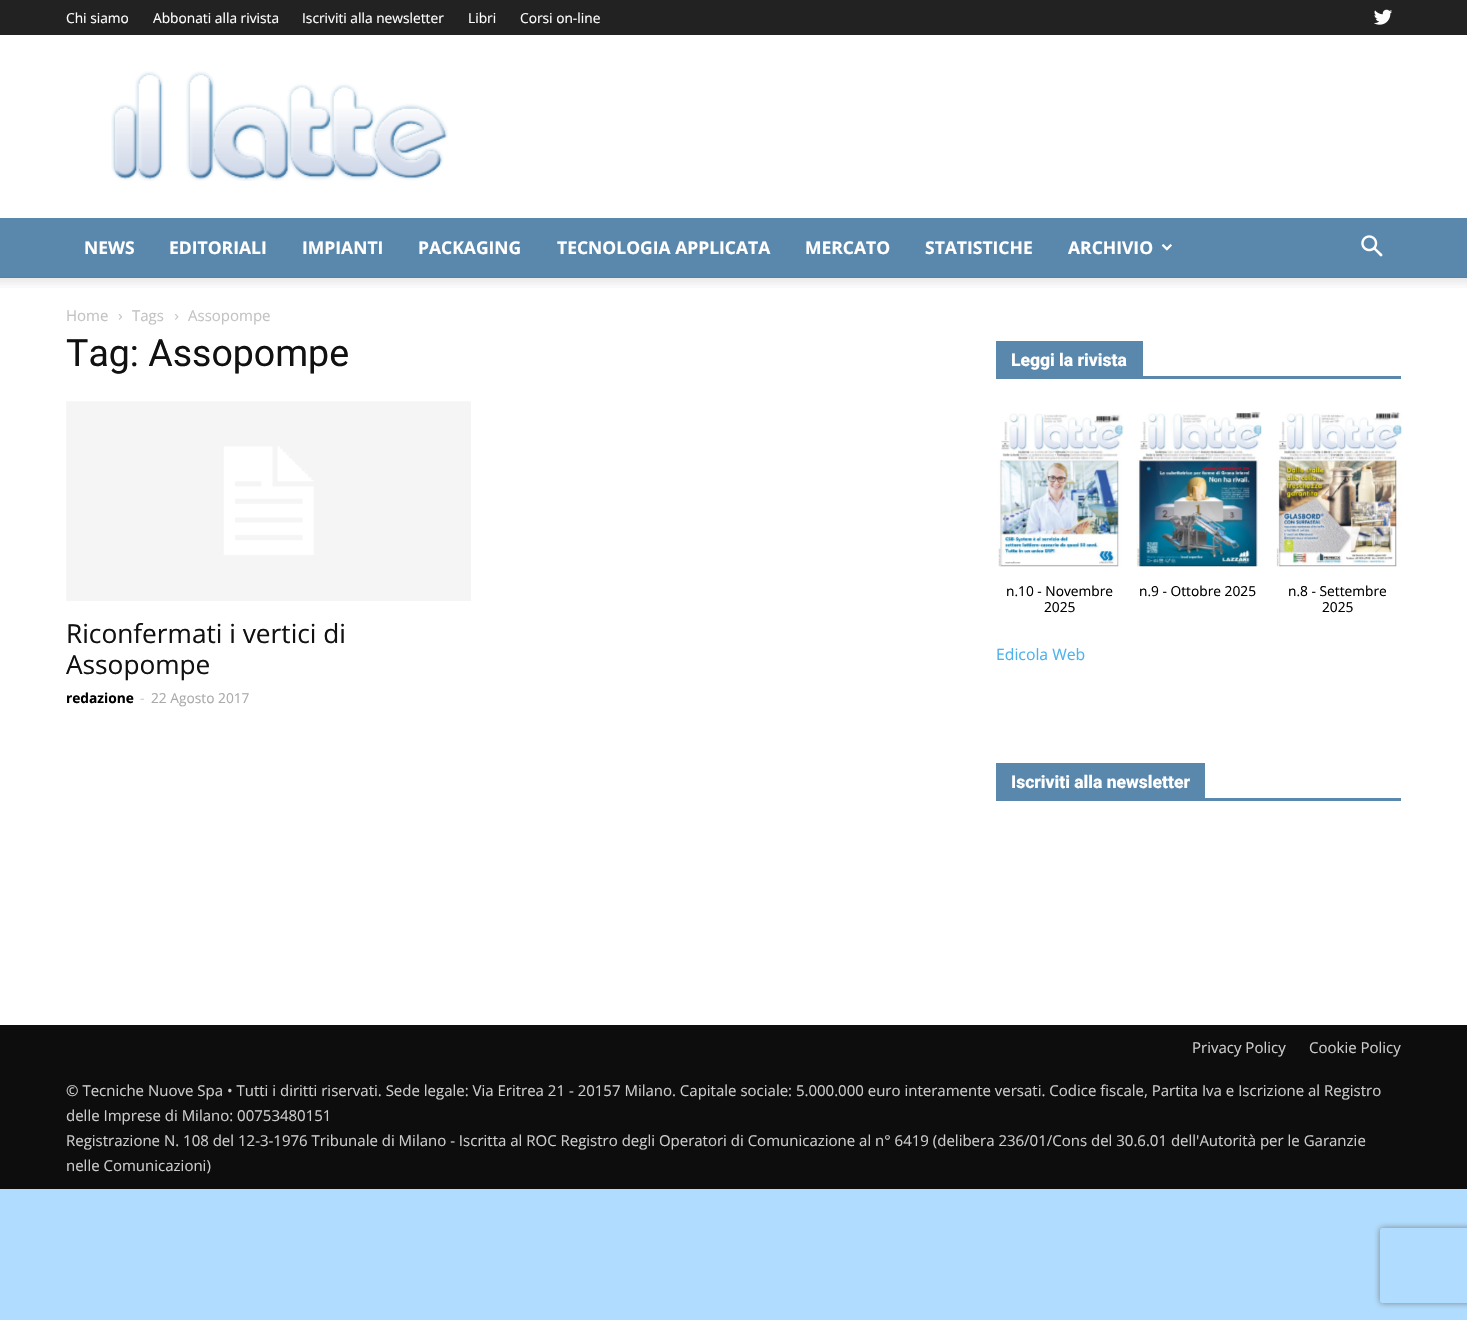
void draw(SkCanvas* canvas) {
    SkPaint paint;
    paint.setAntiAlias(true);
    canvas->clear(0xFFB0DDFF);
    paint.setColor(0xFF222222);
    canvas->drawRect(SkRect::MakeXYWH(0, 0, 1467, 35), paint);
    SkFont font1(fontMgr->matchFamilyStyle("Open Sans", SkFontStyle::Normal()), 13.75f);
    font1.setSubpixel(true);
    paint.setColor(0xFFFFFFFF);
    canvas->drawString("Chi siamo", 66, 23, font1, paint);
    canvas->drawString("Abbonati alla rivista", 153, 23, font1, paint);
    canvas->drawString("Iscriviti alla newsletter", 302, 23, font1, paint);
    canvas->drawString("Libri", 468, 23, font1, paint);
    canvas->drawString("Corsi on-line", 520, 23, font1, paint);
    canvas->drawImageRect(SkImages::DeferredFromEncodedData(SkData::MakeFromFileName("img1.png")), SkRect::MakeXYWH(1374, 9, 18, 16), SkSamplingOptions());
    canvas->drawRect(SkRect::MakeXYWH(0, 35, 1467, 183), paint);
    canvas->drawImageRect(SkImages::DeferredFromEncodedData(SkData::MakeFromFileName("img2.png")), SkRect::MakeXYWH(111, 71, 337, 110), SkSamplingOptions());
    paint.setColor(0xFF5A87AC);
    canvas->drawRect(SkRect::MakeXYWH(0, 218, 1467, 60), paint);
    SkFont font2(fontMgr->matchFamilyStyle("Open Sans", SkFontStyle::Bold()), 17.5f);
    font2.setSubpixel(true);
    paint.setColor(0xFFFFFFFF);
    canvas->drawString("NEWS", 84, 254, font2, paint);
    canvas->drawString("EDITORIALI", 169, 254, font2, paint);
    canvas->drawString("IMPIANTI", 302, 254, font2, paint);
    canvas->drawString("PACKAGING", 418, 254, font2, paint);
    canvas->drawString("TECNOLOGIA APPLICATA", 557, 254, font2, paint);
    canvas->drawString("MERCATO", 805, 254, font2, paint);
    canvas->drawString("STATISTICHE", 925, 254, font2, paint);
    canvas->drawString("ARCHIVIO", 1068, 254, font2, paint);
    canvas->drawImageRect(SkImages::DeferredFromEncodedData(SkData::MakeFromFileName("img3.png")), SkRect::MakeXYWH(1161, 244, 11, 7), SkSamplingOptions());
    canvas->drawImageRect(SkImages::DeferredFromEncodedData(SkData::MakeFromFileName("img4.png")), SkRect::MakeXYWH(1361, 235, 22, 22), SkSamplingOptions());
    canvas->drawRect(SkRect::MakeXYWH(0, 278, 1467, 747), paint);
    canvas->drawImageRect(SkImages::DeferredFromEncodedData(SkData::MakeFromFileName("img5.png")), SkRect::MakeXYWH(0, 277, 1467, 11), SkSamplingOptions());
    SkFont font3(fontMgr->matchFamilyStyle("Open Sans", SkFontStyle::Normal()), 15);
    font3.setSubpixel(true);
    paint.setColor(0xFFC3C3C3);
    canvas->drawString("Home", 66, 321, font3, paint);
    canvas->drawImageRect(SkImages::DeferredFromEncodedData(SkData::MakeFromFileName("img6.png")), SkRect::MakeXYWH(118, 314, 4, 6), SkSamplingOptions());
    canvas->drawString("Tags", 132, 321, font3, paint);
    canvas->drawImageRect(SkImages::DeferredFromEncodedData(SkData::MakeFromFileName("img7.png")), SkRect::MakeXYWH(175, 314, 4, 6), SkSamplingOptions());
    canvas->drawString("Assopompe", 188, 321, font3, paint);
    SkFont font4(fontMgr->matchFamilyStyle("Roboto", SkFontStyle::Normal()), 37.5f);
    font4.setSubpixel(true);
    paint.setColor(0xFF111111);
    canvas->drawString("Tag: Assopompe", 66, 366, font4, paint);
    canvas->drawImageRect(SkImages::DeferredFromEncodedData(SkData::MakeFromFileName("img8.png")), SkRect::MakeXYWH(66, 401, 405, 200), SkSamplingOptions());
    SkFont font5(fontMgr->matchFamilyStyle("Open Sans", SkFontStyle::Normal()), 26.25f);
    font5.setSubpixel(true);
    canvas->drawString("Riconfermati i vertici di", 66, 643, font5, paint);
    canvas->drawString("Assopompe", 66, 674, font5, paint);
    SkFont font6(fontMgr->matchFamilyStyle("Open Sans", SkFontStyle::Bold()), 13.75f);
    font6.setSubpixel(true);
    paint.setColor(0xFF000000);
    canvas->drawString("redazione", 66, 703, font6, paint);
    paint.setColor(0xFFCCCCCC);
    canvas->drawString("-", 140, 703, font1, paint);
    paint.setColor(0xFFAAAAAA);
    canvas->drawString("22 Agosto 2017", 151, 703, font1, paint);
    paint.setColor(0xFF5A87AC);
    canvas->drawRect(SkRect::MakeXYWH(996, 376, 405, 3), paint);
    canvas->drawRect(SkRect::MakeXYWH(996, 341, 147, 35), paint);
    SkFont font7(fontMgr->matchFamilyStyle("Roboto", SkFontStyle(800, SkFontStyle::kNormal_Width, SkFontStyle::kUpright_Slant)), 17.5f);
    font7.setSubpixel(true);
    paint.setColor(0xFFFFFFFF);
    canvas->drawString("Leggi la rivista", 1011, 366, font7, paint);
    canvas->drawImageRect(SkImages::DeferredFromEncodedData(SkData::MakeFromFileName("img9.png")), SkRect::MakeXYWH(998, 413, 126, 154), SkSamplingOptions());
    paint.setColor(0xFF000000);
    canvas->drawString("n.10 - Novembre", 1006, 596, font1, paint);
    canvas->drawString("2025", 1044, 612, font1, paint);
    canvas->drawImageRect(SkImages::DeferredFromEncodedData(SkData::MakeFromFileName("img10.png")), SkRect::MakeXYWH(1136, 412, 126, 155), SkSamplingOptions());
    canvas->drawString("n.9 - Ottobre 2025", 1139, 596, font1, paint);
    canvas->drawImageRect(SkImages::DeferredFromEncodedData(SkData::MakeFromFileName("img11.png")), SkRect::MakeXYWH(1276, 412, 126, 155), SkSamplingOptions());
    canvas->drawString("n.8 - Settembre", 1288, 596, font1, paint);
    canvas->drawString("2025", 1322, 612, font1, paint);
    SkFont font8(fontMgr->matchFamilyStyle("Open Sans", SkFontStyle::Normal()), 15.75f);
    font8.setSubpixel(true);
    paint.setColor(0xFF4DB2EC);
    canvas->drawString("Edicola Web", 996, 660, font8, paint);
    paint.setColor(0xFF5A87AC);
    canvas->drawRect(SkRect::MakeXYWH(996, 798, 405, 3), paint);
    canvas->drawRect(SkRect::MakeXYWH(996, 763, 209, 35), paint);
    paint.setColor(0xFFFFFFFF);
    canvas->drawString("Iscriviti alla newsletter", 1011, 788, font7, paint);
    paint.setColor(0xFF0D0D0D);
    canvas->drawRect(SkRect::MakeXYWH(0, 1025, 1467, 164), paint);
    paint.setColor(0xFFCCCCCC);
    canvas->drawString("Privacy Policy", 1192, 1053, font3, paint);
    canvas->drawString("Cookie Policy", 1309, 1053, font3, paint);
    canvas->drawString("© Tecniche Nuove Spa • Tutti i diritti riservati. Sede legale: Via Eritrea 21 - 20157 Milano. Capitale sociale: 5.000.000 euro interamente versati. Codice fiscale, Partita Iva e Iscrizione al Registro", 66, 1096, font3, paint);
    canvas->drawString("delle Imprese di Milano: 00753480151", 66, 1121, font3, paint);
    canvas->drawString("Registrazione N. 108 del 12-3-1976 Tribunale di Milano - Iscritta al ROC Registro degli Operatori di Comunicazione al n° 6419 (delibera 236/01/Cons del 30.6.01 dell'Autorità per le Garanzie", 66, 1146, font3, paint);
    canvas->drawString("nelle Comunicazioni)", 66, 1171, font3, paint);
    canvas->save();
    canvas->clipPath(SkPathBuilder(SkPathFillType::kEvenOdd).moveTo(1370, 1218).lineTo(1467, 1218).lineTo(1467, 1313).lineTo(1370, 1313).close().moveTo(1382.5f, 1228).lineTo(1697.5f, 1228).cubicTo(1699, 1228, 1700, 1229, 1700, 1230.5f).lineTo(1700, 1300.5f).cubicTo(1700, 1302, 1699, 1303, 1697.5f, 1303).lineTo(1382.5f, 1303).cubicTo(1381, 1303, 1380, 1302, 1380, 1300.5f).lineTo(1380, 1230.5f).cubicTo(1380, 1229, 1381, 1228, 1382.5f, 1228).close().detach(), true);
    paint.setColor(0xFF808080);
    paint.setMaskFilter(SkMaskFilter::MakeBlur(kNormal_SkBlurStyle, 3));
    canvas->drawRoundRect(SkRect::MakeXYWH(1380, 1228, 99, 75), 2.5f, 2.5f, paint);
    paint.setMaskFilter(nullptr);
    canvas->restore();
}
